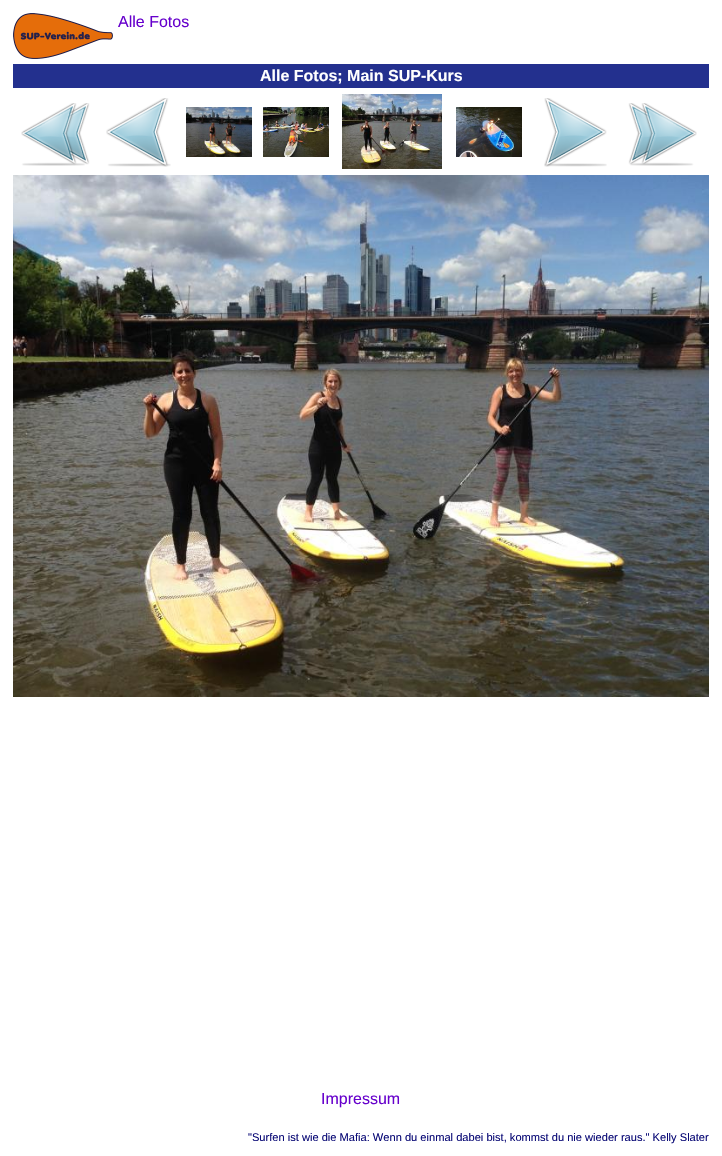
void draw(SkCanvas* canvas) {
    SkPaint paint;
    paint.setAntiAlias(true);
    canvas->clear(0xFFFFFFFF);
    canvas->drawImageRect(SkImages::DeferredFromEncodedData(SkData::MakeFromFileName("img1.png")), SkRect::MakeXYWH(13, 13, 100, 46), SkSamplingOptions());
    SkFont font1(fontMgr->matchFamilyStyle("Liberation Sans", SkFontStyle::Normal()), 16);
    font1.setSubpixel(true);
    paint.setColor(0xFF6600CC);
    canvas->drawString("Alle Fotos", 118, 27, font1, paint);
    paint.setColor(0xFF23308E);
    canvas->drawRect(SkRect::MakeXYWH(13, 64, 696, 24), paint);
    SkFont font2(fontMgr->matchFamilyStyle("Liberation Sans", SkFontStyle::Bold()), 16);
    font2.setSubpixel(true);
    paint.setColor(0xFFFFFFFF);
    canvas->drawString("Alle Fotos; Main SUP-Kurs", 260, 81, font2, paint);
    canvas->drawImageRect(SkImages::DeferredFromEncodedData(SkData::MakeFromFileName("img2.png")), SkRect::MakeXYWH(21, 103, 69, 63), SkSamplingOptions());
    canvas->drawImageRect(SkImages::DeferredFromEncodedData(SkData::MakeFromFileName("img3.png")), SkRect::MakeXYWH(106, 98, 65, 69), SkSamplingOptions());
    canvas->drawImageRect(SkImages::DeferredFromEncodedData(SkData::MakeFromFileName("img4.png")), SkRect::MakeXYWH(186, 107, 66, 50), SkSamplingOptions());
    canvas->drawImageRect(SkImages::DeferredFromEncodedData(SkData::MakeFromFileName("img5.png")), SkRect::MakeXYWH(263, 107, 66, 50), SkSamplingOptions());
    canvas->drawImageRect(SkImages::DeferredFromEncodedData(SkData::MakeFromFileName("img6.png")), SkRect::MakeXYWH(342, 94, 100, 75), SkSamplingOptions());
    canvas->drawImageRect(SkImages::DeferredFromEncodedData(SkData::MakeFromFileName("img7.png")), SkRect::MakeXYWH(456, 107, 66, 50), SkSamplingOptions());
    canvas->drawImageRect(SkImages::DeferredFromEncodedData(SkData::MakeFromFileName("img8.png")), SkRect::MakeXYWH(544, 98, 63, 69), SkSamplingOptions());
    canvas->drawImageRect(SkImages::DeferredFromEncodedData(SkData::MakeFromFileName("img9.png")), SkRect::MakeXYWH(628, 103, 69, 63), SkSamplingOptions());
    canvas->drawImageRect(SkImages::DeferredFromEncodedData(SkData::MakeFromFileName("img10.png")), SkRect::MakeXYWH(13, 175, 696, 522), SkSamplingOptions());
    paint.setColor(0xFF6600CC);
    canvas->drawString("Impressum", 321, 1104, font1, paint);
    SkFont font3(fontMgr->matchFamilyStyle("Liberation Sans", SkFontStyle::Normal()), 11.1f);
    font3.setSubpixel(true);
    paint.setColor(0xFF080875);
    canvas->drawString("\"Surfen ist wie die Mafia: Wenn du einmal dabei bist, kommst du nie wieder raus.\" Kelly Slater", 248, 1141, font3, paint);
}
